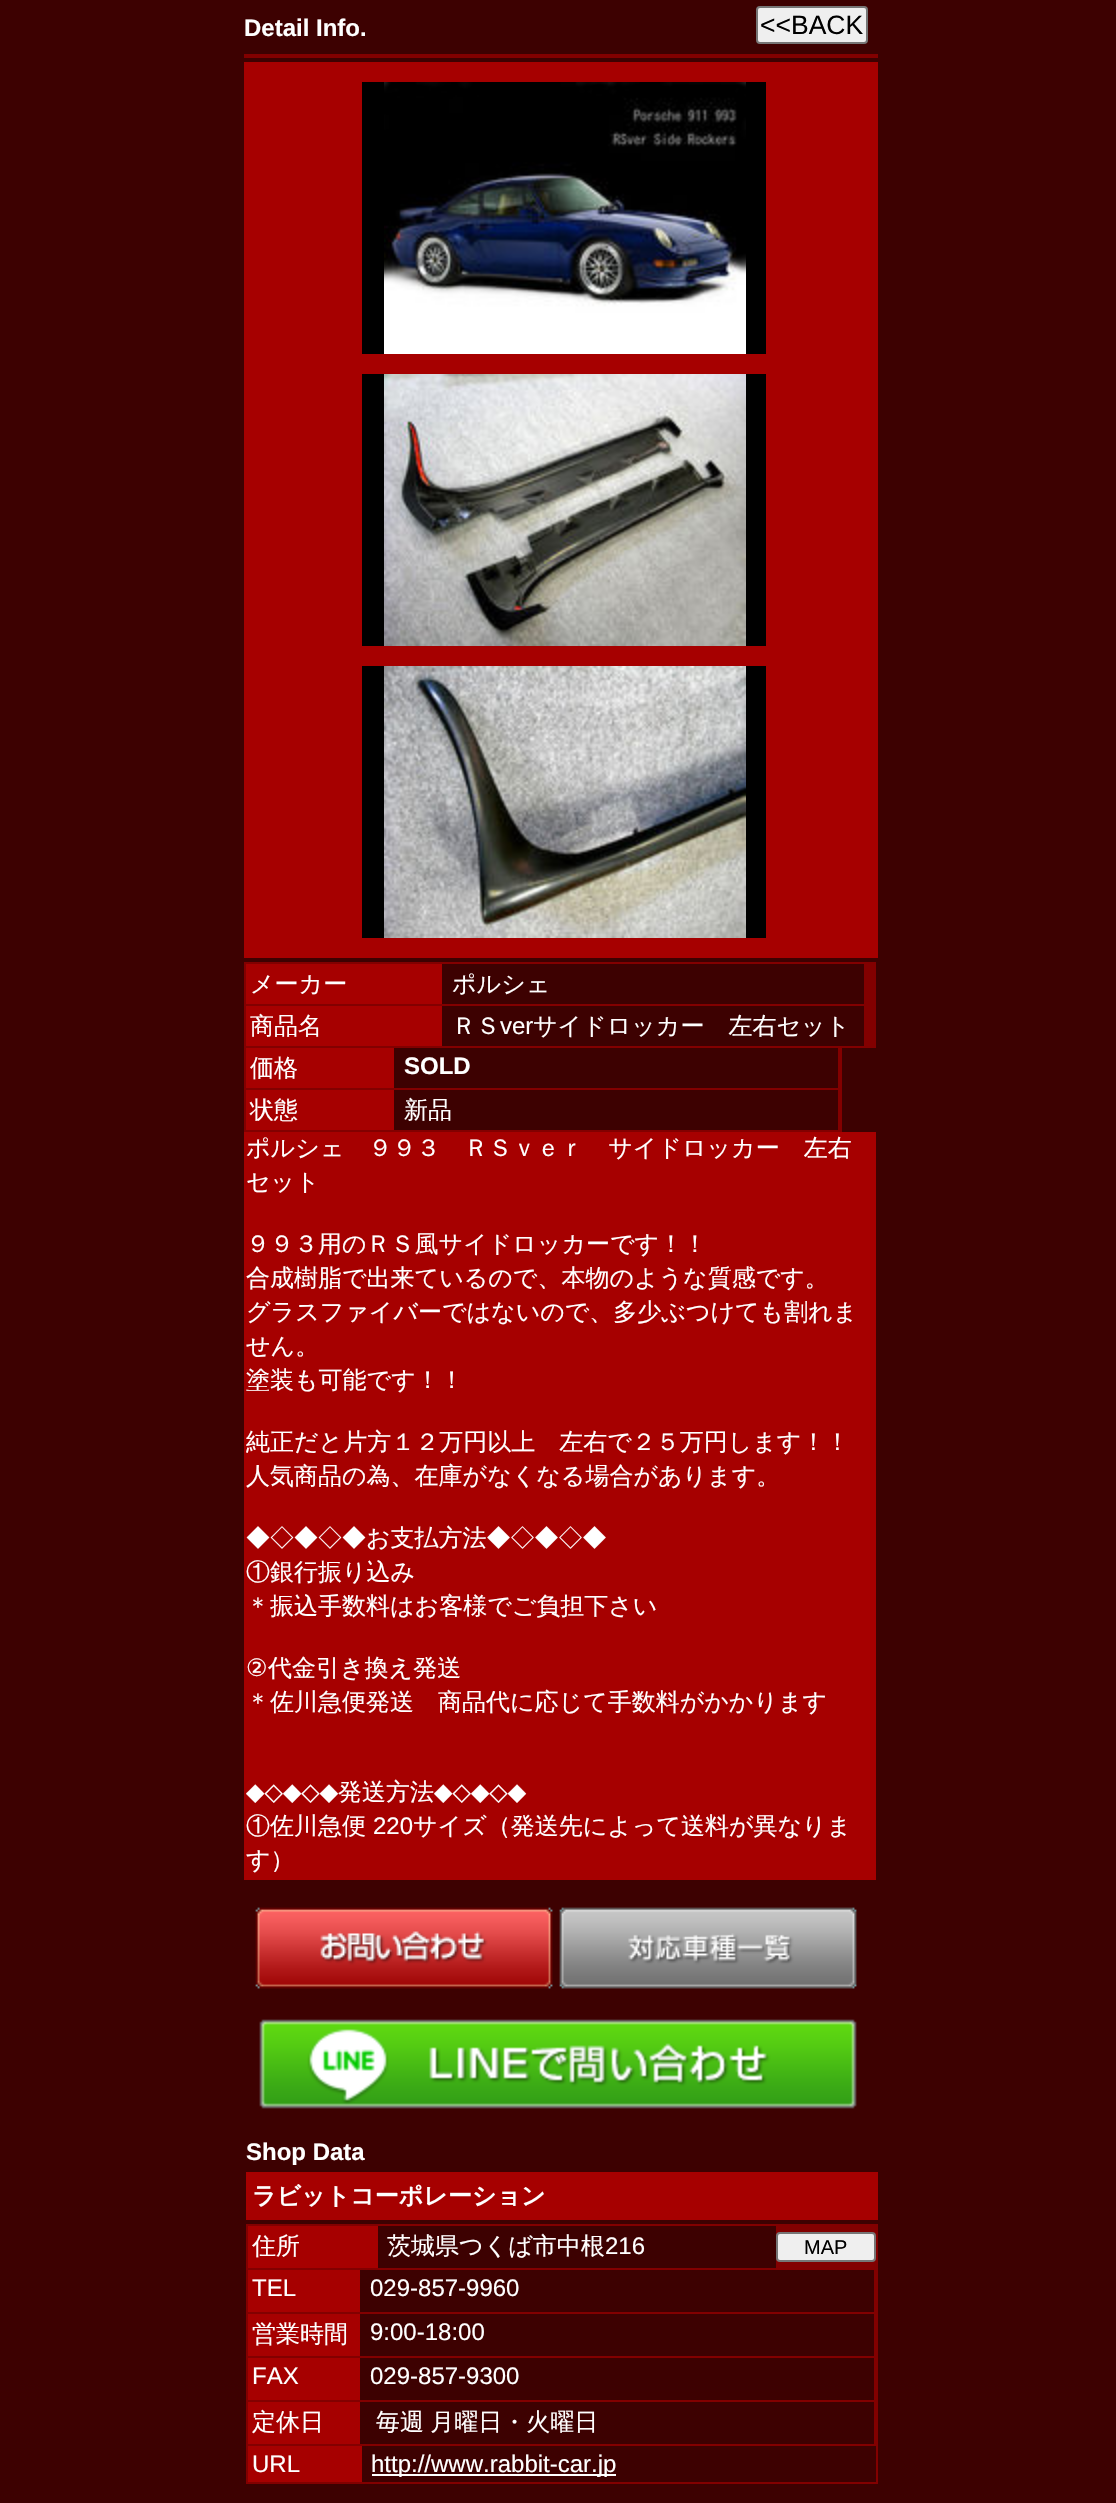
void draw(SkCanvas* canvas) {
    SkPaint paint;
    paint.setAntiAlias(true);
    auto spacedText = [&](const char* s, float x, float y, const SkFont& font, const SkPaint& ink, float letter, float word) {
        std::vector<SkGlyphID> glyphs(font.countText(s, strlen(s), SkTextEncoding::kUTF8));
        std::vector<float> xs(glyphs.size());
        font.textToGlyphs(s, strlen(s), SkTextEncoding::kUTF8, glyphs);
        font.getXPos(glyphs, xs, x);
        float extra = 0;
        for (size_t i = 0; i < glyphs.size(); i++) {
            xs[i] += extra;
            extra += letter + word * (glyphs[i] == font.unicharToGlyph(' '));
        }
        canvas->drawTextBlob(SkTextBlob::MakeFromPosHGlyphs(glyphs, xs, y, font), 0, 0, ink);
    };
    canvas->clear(0xFF3D0101);
    paint.setColor(0xFF820000);
    canvas->drawRect(SkRect::MakeXYWH(244, 54, 634, 4), paint);
    SkFont font1(fontMgr->matchFamilyStyle("Liberation Sans", SkFontStyle::Bold()), 24);
    font1.setSubpixel(true);
    paint.setColor(0xFFFFFFFF);
    canvas->drawString("Detail Info.", 244, 36, font1, paint);
    paint.setColor(0xFFEFEFEF);
    canvas->drawRoundRect(SkRect::MakeXYWH(757, 7, 110, 36), 3, 3, paint);
    paint.setStyle(SkPaint::kStroke_Style);
    paint.setStrokeWidth(2);
    paint.setColor(0xFF767676);
    canvas->drawRoundRect(SkRect::MakeXYWH(757, 7, 110, 36), 3, 3, paint);
    SkFont font2(fontMgr->matchFamilyStyle("Liberation Sans", SkFontStyle::Normal()), 26.5f);
    font2.setSubpixel(true);
    paint.setStyle(SkPaint::kFill_Style);
    paint.setColor(0xFF000000);
    canvas->drawString("<<BACK", 760, 34, font2, paint);
    paint.setColor(0xFFA60000);
    canvas->drawRect(SkRect::MakeXYWH(244, 62, 634, 896), paint);
    paint.setColor(0xFF000000);
    canvas->drawRect(SkRect::MakeXYWH(362, 82, 404, 272), paint);
    canvas->drawImageRect(SkImages::DeferredFromEncodedData(SkData::MakeFromFileName("img1.png")), SkRect::MakeXYWH(384, 82, 362, 272), SkSamplingOptions());
    canvas->drawRect(SkRect::MakeXYWH(362, 374, 404, 272), paint);
    canvas->drawImageRect(SkImages::DeferredFromEncodedData(SkData::MakeFromFileName("img2.png")), SkRect::MakeXYWH(384, 374, 362, 272), SkSamplingOptions());
    canvas->drawRect(SkRect::MakeXYWH(362, 666, 404, 272), paint);
    canvas->drawImageRect(SkImages::DeferredFromEncodedData(SkData::MakeFromFileName("img3.png")), SkRect::MakeXYWH(384, 666, 362, 272), SkSamplingOptions());
    paint.setColor(0xFF820000);
    canvas->drawRect(SkRect::MakeXYWH(244, 962, 632, 86), paint);
    paint.setColor(0xFFA60000);
    canvas->drawRect(SkRect::MakeXYWH(246, 964, 196, 40), paint);
    SkFont font3(fontMgr->matchFamilyStyle("WenQuanYi Zen Hei", SkFontStyle(500, SkFontStyle::kNormal_Width, SkFontStyle::kUpright_Slant)), 24);
    font3.setSubpixel(true);
    paint.setColor(0xFFFFFFFF);
    canvas->drawString("メーカー", 250, 992, font3, paint);
    paint.setColor(0xFF3D0101);
    canvas->drawRect(SkRect::MakeXYWH(442, 964, 422, 40), paint);
    paint.setColor(0xFFFFFFFF);
    canvas->drawString("ポルシェ", 452, 992, font3, paint);
    paint.setColor(0xFFA60000);
    canvas->drawRect(SkRect::MakeXYWH(246, 1006, 196, 40), paint);
    paint.setColor(0xFFFFFFFF);
    canvas->drawString("商品名", 250, 1034, font3, paint);
    paint.setColor(0xFF3D0101);
    canvas->drawRect(SkRect::MakeXYWH(442, 1006, 422, 40), paint);
    paint.setColor(0xFFFFFFFF);
    canvas->drawString("ＲＳ", 452, 1034, font3, paint);
    SkFont font4(fontMgr->matchFamilyStyle("Liberation Sans", SkFontStyle::Normal()), 24);
    font4.setSubpixel(true);
    canvas->drawString("ver", 500, 1034, font4, paint);
    canvas->drawString("サイドロッカー　左右セット", 533, 1034, font3, paint);
    paint.setColor(0xFF820000);
    canvas->drawRect(SkRect::MakeXYWH(244, 1048, 598, 84), paint);
    paint.setColor(0xFFA60000);
    canvas->drawRect(SkRect::MakeXYWH(246, 1048, 148, 40), paint);
    paint.setColor(0xFFFFFFFF);
    canvas->drawString("価格", 250, 1076, font3, paint);
    paint.setColor(0xFF3D0101);
    canvas->drawRect(SkRect::MakeXYWH(394, 1048, 444, 40), paint);
    paint.setColor(0xFFFFFFFF);
    canvas->drawString("SOLD", 404, 1074, font1, paint);
    paint.setColor(0xFFA60000);
    canvas->drawRect(SkRect::MakeXYWH(246, 1090, 148, 40), paint);
    paint.setColor(0xFFFFFFFF);
    canvas->drawString("状態", 250, 1118, font3, paint);
    paint.setColor(0xFF3D0101);
    canvas->drawRect(SkRect::MakeXYWH(394, 1090, 444, 40), paint);
    paint.setColor(0xFFFFFFFF);
    canvas->drawString("新品", 404, 1118, font3, paint);
    paint.setColor(0xFFA60000);
    canvas->drawRect(SkRect::MakeXYWH(244, 1132, 632, 748), paint);
    paint.setColor(0xFFFFFFFF);
    canvas->drawString("ポルシェ　９９３　ＲＳｖｅｒ　サイドロッカー　左右", 246, 1156, font3, paint);
    canvas->drawString("セット", 246, 1190, font3, paint);
    canvas->drawString("９９３用のＲＳ風サイドロッカーです！！", 246, 1252, font3, paint);
    canvas->drawString("合成樹脂で出来ているので、本物のような質感です。", 246, 1286, font3, paint);
    canvas->drawString("グラスファイバーではないので、多少ぶつけても割れま", 246, 1320, font3, paint);
    canvas->drawString("せん。", 246, 1354, font3, paint);
    canvas->drawString("塗装も可能です！！", 246, 1388, font3, paint);
    canvas->drawString("純正だと片方１２万円以上　左右で２５万円します！！", 246, 1450, font3, paint);
    canvas->drawString("人気商品の為、在庫がなくなる場合があります。", 246, 1484, font3, paint);
    canvas->drawString("◆◇◆◇◆お支払方法◆◇◆◇◆", 246, 1546, font3, paint);
    canvas->drawString("①銀行振り込み", 246, 1580, font3, paint);
    canvas->drawString("＊振込手数料はお客様でご負担下さい", 246, 1614, font3, paint);
    SkFont font5(fontMgr->matchFamilyStyle("DejaVu Sans", SkFontStyle::Normal()), 24);
    font5.setSubpixel(true);
    canvas->drawString("②", 246, 1676, font5, paint);
    canvas->drawString("代金引き換え発送", 268, 1676, font3, paint);
    canvas->drawString("＊佐川急便発送　商品代に応じて手数料がかかります", 246, 1710, font3, paint);
    canvas->drawString("◆◇◆◇◆", 246, 1800, font5, paint);
    canvas->drawString("発送方法", 338, 1800, font3, paint);
    canvas->drawString("◆◇◆◇◆", 434, 1800, font5, paint);
    canvas->drawString("①佐川急便", 246, 1834, font3, paint);
    canvas->drawString("220", 373, 1834, font4, paint);
    canvas->drawString("サイズ（発送先によって送料が異なりま", 413, 1834, font3, paint);
    canvas->drawString("す）", 246, 1868, font3, paint);
    canvas->drawImageRect(SkImages::DeferredFromEncodedData(SkData::MakeFromFileName("img4.png")), SkRect::MakeXYWH(255, 1907, 298, 82), SkSamplingOptions());
    canvas->drawImageRect(SkImages::DeferredFromEncodedData(SkData::MakeFromFileName("img5.png")), SkRect::MakeXYWH(559, 1907, 298, 82), SkSamplingOptions());
    canvas->drawImageRect(SkImages::DeferredFromEncodedData(SkData::MakeFromFileName("img6.png")), SkRect::MakeXYWH(259, 2019, 598, 90), SkSamplingOptions());
    canvas->drawString("Shop Data", 246, 2160, font1, paint);
    paint.setColor(0xFFA60000);
    canvas->drawRect(SkRect::MakeXYWH(246, 2172, 632, 48), paint);
    SkFont font6(fontMgr->matchFamilyStyle("WenQuanYi Zen Hei", SkFontStyle::Bold()), 24);
    font6.setSubpixel(true);
    paint.setColor(0xFFFFFFFF);
    canvas->drawString("ラビットコーポレーション", 252, 2204, font6, paint);
    paint.setColor(0xFF820000);
    canvas->drawRect(SkRect::MakeXYWH(246, 2224, 632, 178), paint);
    paint.setColor(0xFFA60000);
    canvas->drawRect(SkRect::MakeXYWH(248, 2226, 130, 42), paint);
    paint.setColor(0xFFFFFFFF);
    canvas->drawString("住所", 252, 2254, font3, paint);
    paint.setColor(0xFF3D0101);
    canvas->drawRect(SkRect::MakeXYWH(378, 2226, 398, 42), paint);
    paint.setColor(0xFFFFFFFF);
    canvas->drawString("茨城県つくば市中根", 387, 2254, font3, paint);
    canvas->drawString("216", 605, 2254, font4, paint);
    paint.setColor(0xFFEFEFEF);
    canvas->drawRoundRect(SkRect::MakeXYWH(777, 2233, 98, 28), 3, 3, paint);
    paint.setStyle(SkPaint::kStroke_Style);
    paint.setColor(0xFF767676);
    canvas->drawRoundRect(SkRect::MakeXYWH(777, 2233, 98, 28), 3, 3, paint);
    SkFont font7(fontMgr->matchFamilyStyle("Liberation Sans", SkFontStyle::Normal()), 20);
    font7.setSubpixel(true);
    paint.setStyle(SkPaint::kFill_Style);
    paint.setColor(0xFF000000);
    canvas->drawString("MAP", 804, 2254, font7, paint);
    paint.setColor(0xFFA60000);
    canvas->drawRect(SkRect::MakeXYWH(248, 2270, 112, 42), paint);
    paint.setColor(0xFFFFFFFF);
    canvas->drawString("TEL", 252, 2296, font4, paint);
    paint.setColor(0xFF3D0101);
    canvas->drawRect(SkRect::MakeXYWH(360, 2270, 514, 42), paint);
    paint.setColor(0xFFFFFFFF);
    canvas->drawString("029-857-9960", 370, 2296, font4, paint);
    paint.setColor(0xFFA60000);
    canvas->drawRect(SkRect::MakeXYWH(248, 2314, 112, 42), paint);
    paint.setColor(0xFFFFFFFF);
    canvas->drawString("営業時間", 252, 2342, font3, paint);
    paint.setColor(0xFF3D0101);
    canvas->drawRect(SkRect::MakeXYWH(360, 2314, 514, 42), paint);
    paint.setColor(0xFFFFFFFF);
    canvas->drawString("9:00-18:00", 370, 2340, font4, paint);
    paint.setColor(0xFFA60000);
    canvas->drawRect(SkRect::MakeXYWH(248, 2358, 112, 42), paint);
    paint.setColor(0xFFFFFFFF);
    canvas->drawString("FAX", 252, 2384, font4, paint);
    paint.setColor(0xFF3D0101);
    canvas->drawRect(SkRect::MakeXYWH(360, 2358, 514, 42), paint);
    paint.setColor(0xFFFFFFFF);
    canvas->drawString("029-857-9300", 370, 2384, font4, paint);
    paint.setColor(0xFF820000);
    canvas->drawRect(SkRect::MakeXYWH(246, 2402, 632, 82), paint);
    paint.setColor(0xFFA60000);
    canvas->drawRect(SkRect::MakeXYWH(248, 2402, 112, 42), paint);
    paint.setColor(0xFFFFFFFF);
    canvas->drawString("定休日", 252, 2430, font3, paint);
    paint.setColor(0xFF3D0101);
    canvas->drawRect(SkRect::MakeXYWH(360, 2402, 514, 42), paint);
    paint.setColor(0xFFFFFFFF);
    spacedText("毎週 月曜日・火曜日", 376, 2430, font3, paint, 0, -1);
    paint.setColor(0xFFA60000);
    canvas->drawRect(SkRect::MakeXYWH(248, 2446, 114, 36), paint);
    paint.setColor(0xFFFFFFFF);
    canvas->drawString("URL", 252, 2472, font4, paint);
    paint.setColor(0xFF3D0101);
    canvas->drawRect(SkRect::MakeXYWH(362, 2446, 514, 36), paint);
    paint.setColor(0xFFFFFFFF);
    canvas->drawRect(SkRect::MakeXYWH(372, 2474, 244, 2), paint);
    canvas->drawString("http://www.rabbit-car.jp", 371, 2472, font4, paint);
}
